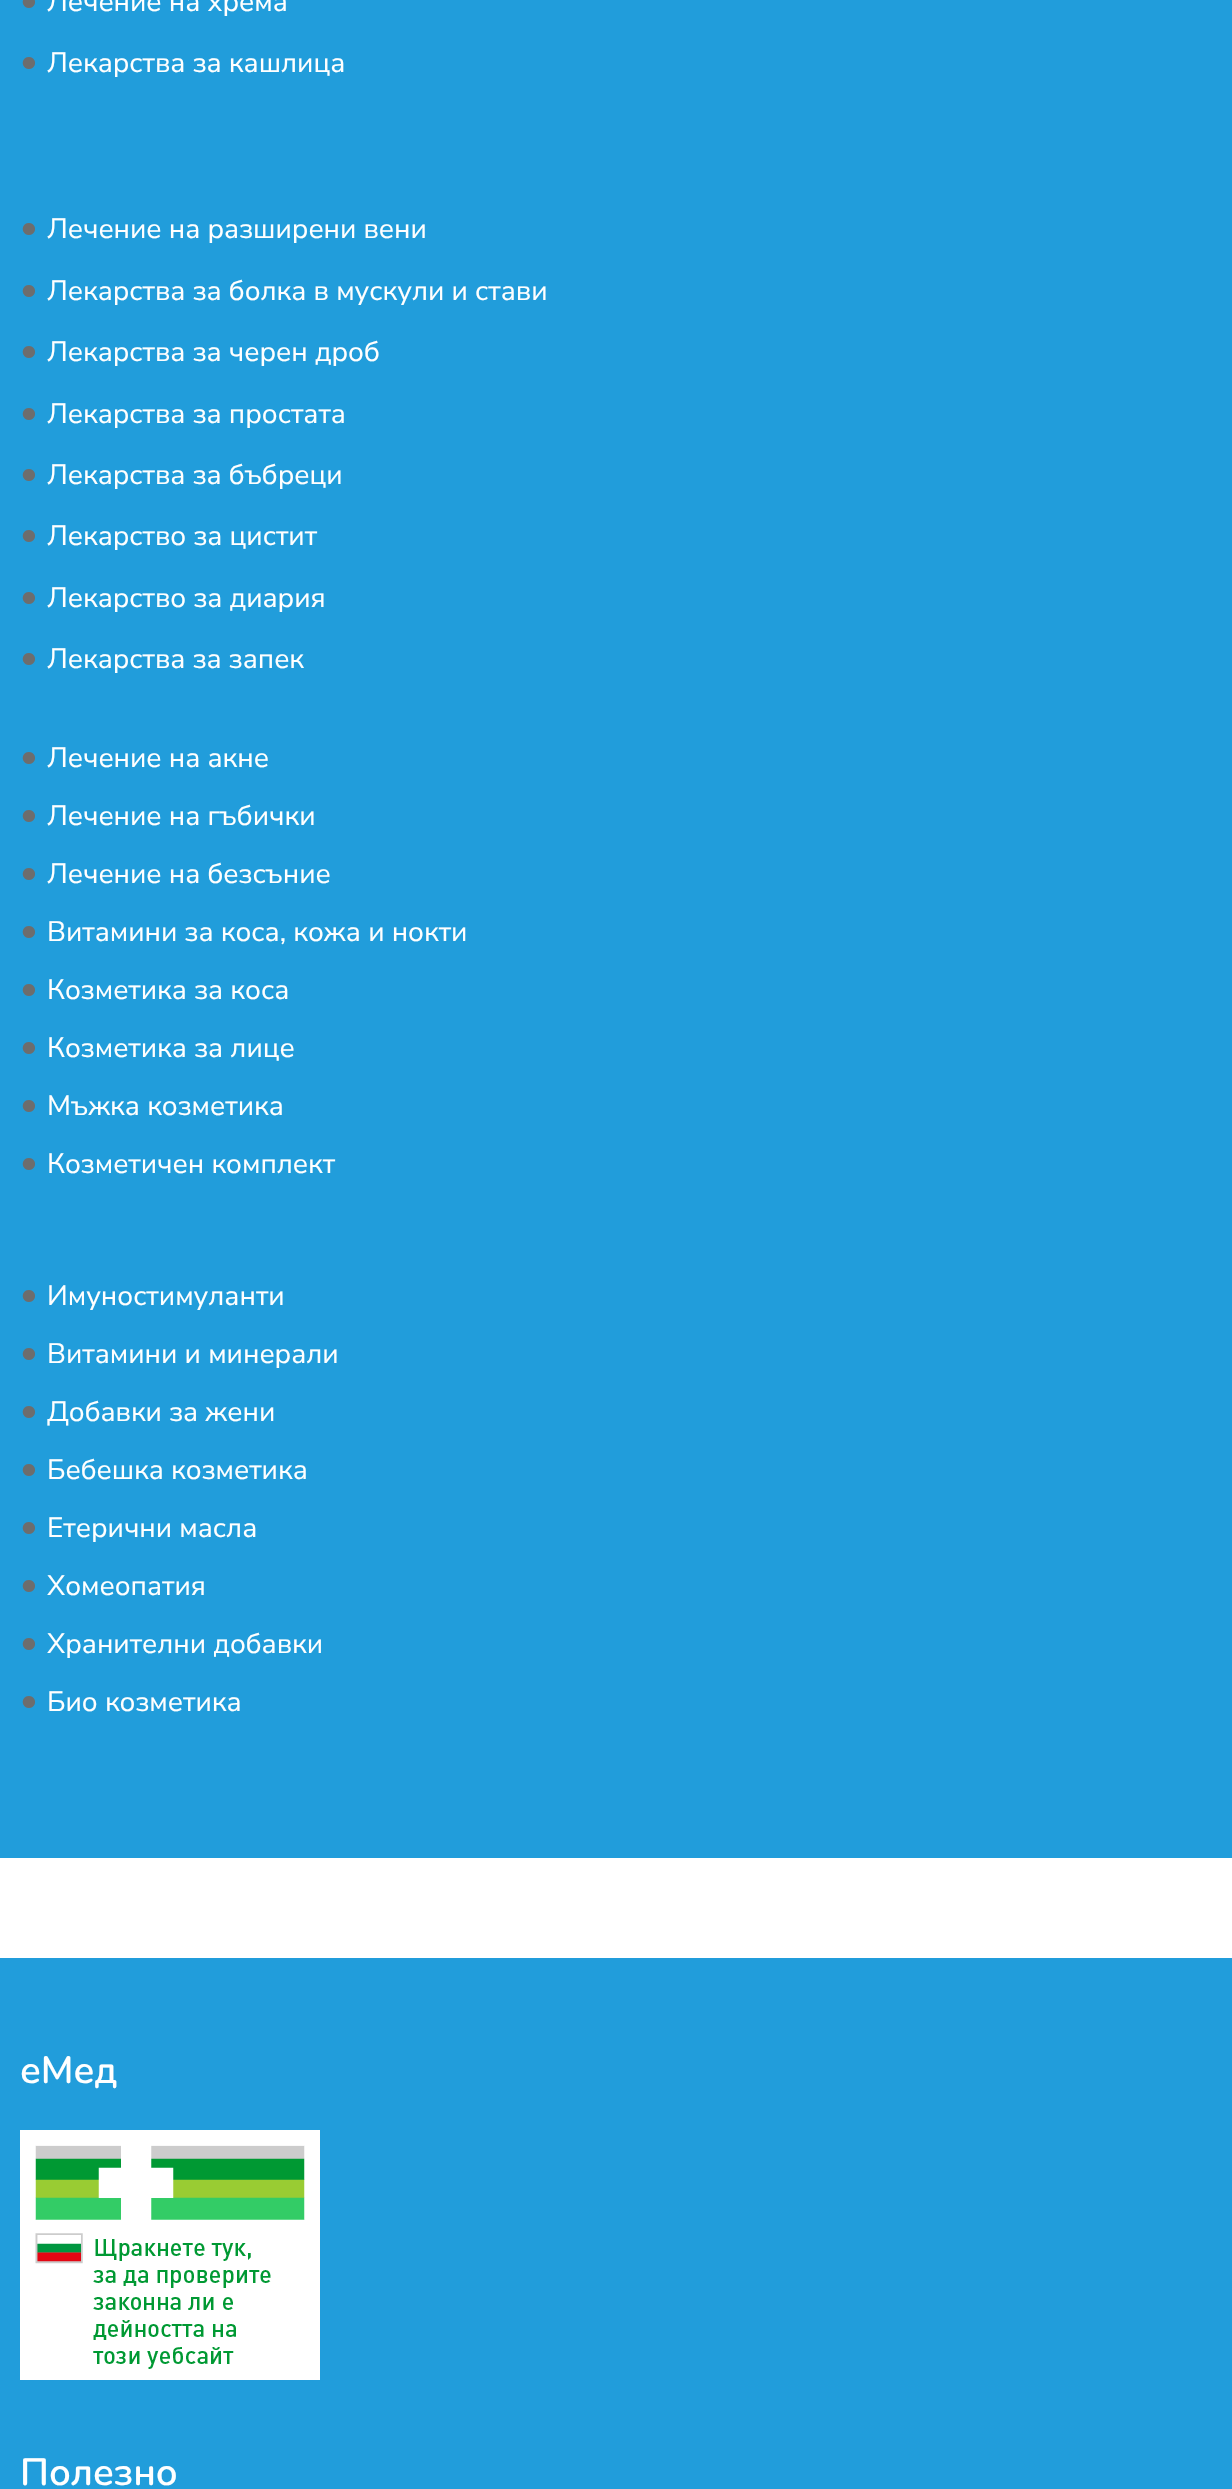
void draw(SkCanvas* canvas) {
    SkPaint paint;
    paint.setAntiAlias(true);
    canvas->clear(0xFFFFFFFF);
    paint.setColor(0xFF219DDB);
    canvas->drawRect(SkRect::MakeXYWH(0, 0, 1232, 1858), paint);
    SkFont font1(fontMgr->matchFamilyStyle("Nunito Sans", SkFontStyle::Normal()), 34);
    font1.setSubpixel(true);
    paint.setColor(0xFF6D6D6D);
    canvas->drawString("•", 20, 11, font1, paint);
    SkFont font2(fontMgr->matchFamilyStyle("Nunito Sans", SkFontStyle::Normal()), 28);
    font2.setSubpixel(true);
    paint.setColor(0xFFFFFFFF);
    canvas->drawString("Лечение на хрема", 47, 11, font2, paint);
    paint.setColor(0xFF6D6D6D);
    canvas->drawString("•", 20, 72, font1, paint);
    paint.setColor(0xFFFFFFFF);
    canvas->drawString("Лекарства за кашлица", 47, 72, font2, paint);
    paint.setColor(0xFF6D6D6D);
    canvas->drawString("•", 20, 238, font1, paint);
    paint.setColor(0xFFFFFFFF);
    canvas->drawString("Лечение на разширени вени", 47, 238, font2, paint);
    paint.setColor(0xFF6D6D6D);
    canvas->drawString("•", 20, 300, font1, paint);
    paint.setColor(0xFFFFFFFF);
    canvas->drawString("Лекарства за болка в мускули и стави", 47, 300, font2, paint);
    paint.setColor(0xFF6D6D6D);
    canvas->drawString("•", 20, 361, font1, paint);
    paint.setColor(0xFFFFFFFF);
    canvas->drawString("Лекарства за черен дроб", 47, 361, font2, paint);
    paint.setColor(0xFF6D6D6D);
    canvas->drawString("•", 20, 423, font1, paint);
    paint.setColor(0xFFFFFFFF);
    canvas->drawString("Лекарства за простата", 47, 423, font2, paint);
    paint.setColor(0xFF6D6D6D);
    canvas->drawString("•", 20, 484, font1, paint);
    paint.setColor(0xFFFFFFFF);
    canvas->drawString("Лекарства за бъбреци", 47, 484, font2, paint);
    paint.setColor(0xFF6D6D6D);
    canvas->drawString("•", 20, 545, font1, paint);
    paint.setColor(0xFFFFFFFF);
    canvas->drawString("Лекарство за цистит", 47, 545, font2, paint);
    paint.setColor(0xFF6D6D6D);
    canvas->drawString("•", 20, 607, font1, paint);
    paint.setColor(0xFFFFFFFF);
    canvas->drawString("Лекарство за диария", 47, 607, font2, paint);
    paint.setColor(0xFF6D6D6D);
    canvas->drawString("•", 20, 668, font1, paint);
    paint.setColor(0xFFFFFFFF);
    canvas->drawString("Лекарства за запек", 47, 668, font2, paint);
    paint.setColor(0xFF6D6D6D);
    canvas->drawString("•", 20, 767, font1, paint);
    paint.setColor(0xFFFFFFFF);
    canvas->drawString("Лечение на акне", 47, 767, font2, paint);
    paint.setColor(0xFF6D6D6D);
    canvas->drawString("•", 20, 825, font1, paint);
    paint.setColor(0xFFFFFFFF);
    canvas->drawString("Лечение на гъбички", 47, 825, font2, paint);
    paint.setColor(0xFF6D6D6D);
    canvas->drawString("•", 20, 883, font1, paint);
    paint.setColor(0xFFFFFFFF);
    canvas->drawString("Лечение на безсъние", 47, 883, font2, paint);
    paint.setColor(0xFF6D6D6D);
    canvas->drawString("•", 20, 941, font1, paint);
    paint.setColor(0xFFFFFFFF);
    canvas->drawString("Витамини за коса, кожа и нокти", 47, 941, font2, paint);
    paint.setColor(0xFF6D6D6D);
    canvas->drawString("•", 20, 999, font1, paint);
    paint.setColor(0xFFFFFFFF);
    canvas->drawString("Козметика за коса", 47, 999, font2, paint);
    paint.setColor(0xFF6D6D6D);
    canvas->drawString("•", 20, 1057, font1, paint);
    paint.setColor(0xFFFFFFFF);
    canvas->drawString("Козметика за лице", 47, 1057, font2, paint);
    paint.setColor(0xFF6D6D6D);
    canvas->drawString("•", 20, 1115, font1, paint);
    paint.setColor(0xFFFFFFFF);
    canvas->drawString("Мъжка козметика", 47, 1115, font2, paint);
    paint.setColor(0xFF6D6D6D);
    canvas->drawString("•", 20, 1173, font1, paint);
    paint.setColor(0xFFFFFFFF);
    canvas->drawString("Козметичен комплект", 47, 1173, font2, paint);
    paint.setColor(0xFF6D6D6D);
    canvas->drawString("•", 20, 1305, font1, paint);
    paint.setColor(0xFFFFFFFF);
    canvas->drawString("Имуностимуланти", 47, 1305, font2, paint);
    paint.setColor(0xFF6D6D6D);
    canvas->drawString("•", 20, 1363, font1, paint);
    paint.setColor(0xFFFFFFFF);
    canvas->drawString("Витамини и минерали", 47, 1363, font2, paint);
    paint.setColor(0xFF6D6D6D);
    canvas->drawString("•", 20, 1421, font1, paint);
    paint.setColor(0xFFFFFFFF);
    canvas->drawString("Добавки за жени", 47, 1421, font2, paint);
    paint.setColor(0xFF6D6D6D);
    canvas->drawString("•", 20, 1479, font1, paint);
    paint.setColor(0xFFFFFFFF);
    canvas->drawString("Бебешка козметика", 47, 1479, font2, paint);
    paint.setColor(0xFF6D6D6D);
    canvas->drawString("•", 20, 1537, font1, paint);
    paint.setColor(0xFFFFFFFF);
    canvas->drawString("Етерични масла", 47, 1537, font2, paint);
    paint.setColor(0xFF6D6D6D);
    canvas->drawString("•", 20, 1595, font1, paint);
    paint.setColor(0xFFFFFFFF);
    canvas->drawString("Хомеопатия", 47, 1595, font2, paint);
    paint.setColor(0xFF6D6D6D);
    canvas->drawString("•", 20, 1653, font1, paint);
    paint.setColor(0xFFFFFFFF);
    canvas->drawString("Хранителни добавки", 47, 1653, font2, paint);
    paint.setColor(0xFF6D6D6D);
    canvas->drawString("•", 20, 1711, font1, paint);
    paint.setColor(0xFFFFFFFF);
    canvas->drawString("Био козметика", 47, 1711, font2, paint);
    paint.setColor(0xFF219DDB);
    canvas->drawRect(SkRect::MakeXYWH(0, 1958, 1232, 531), paint);
    SkFont font3(fontMgr->matchFamilyStyle("Nunito", SkFontStyle(600, SkFontStyle::kNormal_Width, SkFontStyle::kUpright_Slant)), 38);
    font3.setSubpixel(true);
    paint.setColor(0xFFFFFFFF);
    canvas->drawString("еМед", 20, 2083, font3, paint);
    canvas->drawImageRect(SkImages::DeferredFromEncodedData(SkData::MakeFromFileName("img1.png")), SkRect::MakeXYWH(20, 2130, 300, 250), SkSamplingOptions());
    canvas->drawString("Полезно", 20, 2485, font3, paint);
}
